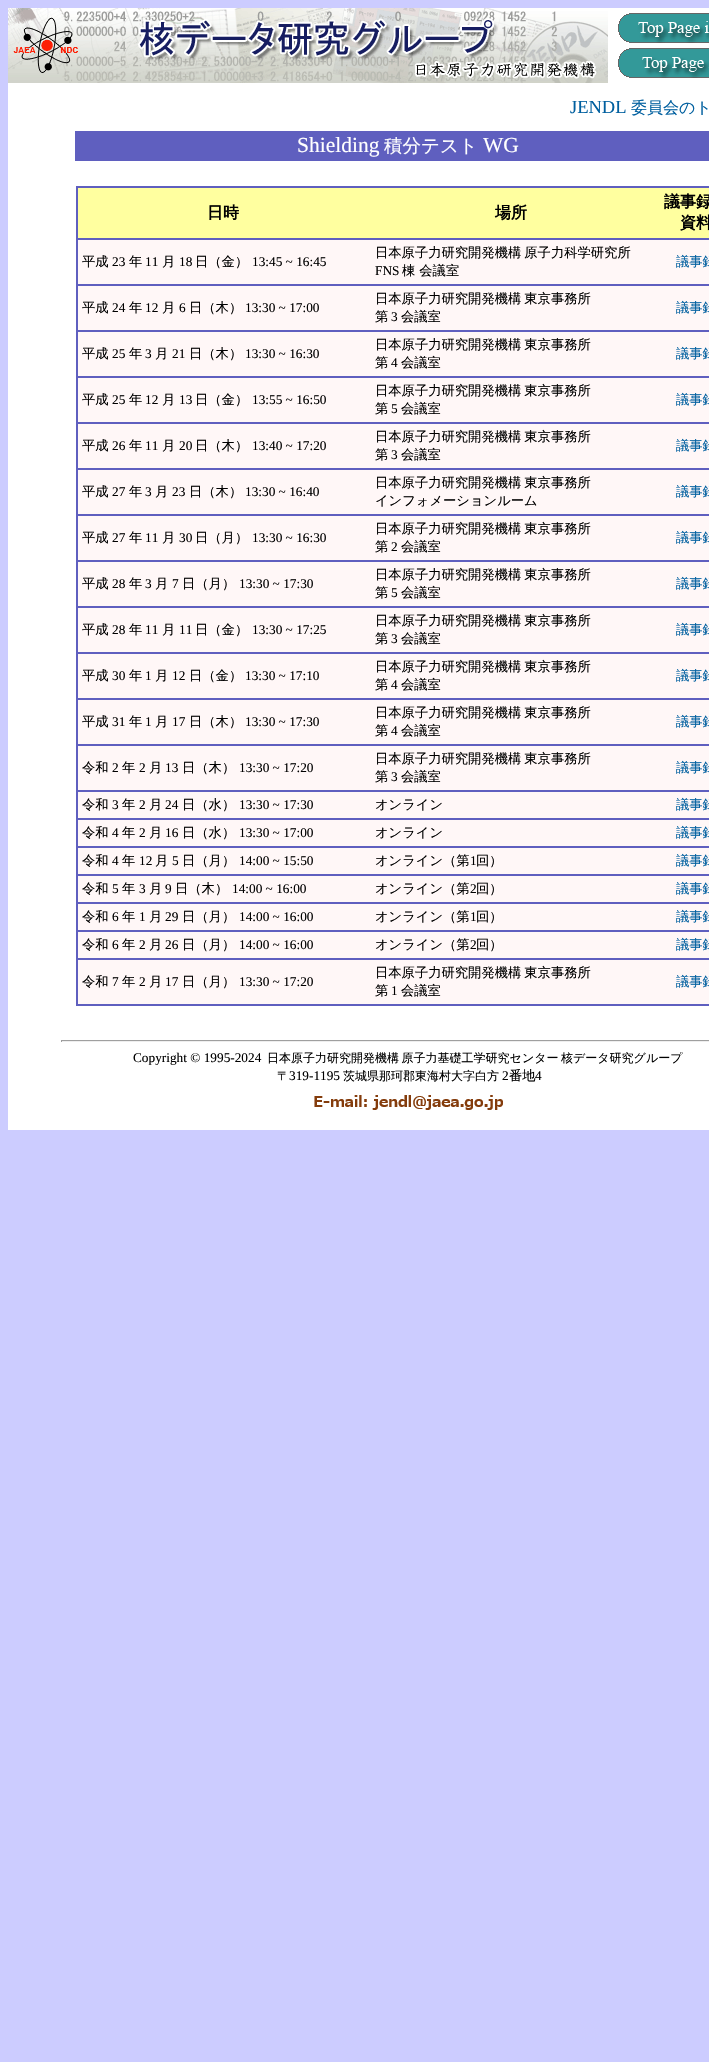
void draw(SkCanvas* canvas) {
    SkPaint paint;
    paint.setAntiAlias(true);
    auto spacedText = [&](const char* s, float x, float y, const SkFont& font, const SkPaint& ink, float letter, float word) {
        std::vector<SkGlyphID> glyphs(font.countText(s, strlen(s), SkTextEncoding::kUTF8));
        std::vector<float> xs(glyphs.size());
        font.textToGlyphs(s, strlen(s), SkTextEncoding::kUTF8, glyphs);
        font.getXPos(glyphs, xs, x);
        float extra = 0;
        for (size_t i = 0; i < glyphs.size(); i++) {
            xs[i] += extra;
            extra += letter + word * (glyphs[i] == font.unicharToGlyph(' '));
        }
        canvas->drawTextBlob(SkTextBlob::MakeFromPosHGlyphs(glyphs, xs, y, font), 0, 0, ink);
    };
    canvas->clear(0xFFCCCCFF);
    paint.setColor(0xFFFFFFFF);
    canvas->drawRect(SkRect::MakeXYWH(8, 8, 701, 1122), paint);
    canvas->drawImageRect(SkImages::DeferredFromEncodedData(SkData::MakeFromFileName("img1.png")), SkRect::MakeXYWH(8, 8, 600, 75), SkSamplingOptions());
    canvas->drawImageRect(SkImages::DeferredFromEncodedData(SkData::MakeFromFileName("img2.png")), SkRect::MakeXYWH(618, 13, 91, 30), SkSamplingOptions());
    canvas->drawImageRect(SkImages::DeferredFromEncodedData(SkData::MakeFromFileName("img3.png")), SkRect::MakeXYWH(618, 48, 91, 30), SkSamplingOptions());
    SkFont font1(fontMgr->matchFamilyStyle("Liberation Serif", SkFontStyle::Normal()), 18.5f);
    font1.setSubpixel(true);
    paint.setColor(0xFF005F9F);
    canvas->drawString("JENDL", 570, 113, font1, paint);
    SkFont font2(fontMgr->matchFamilyStyle("WenQuanYi Zen Hei", SkFontStyle(500, SkFontStyle::kNormal_Width, SkFontStyle::kUpright_Slant)), 16);
    font2.setSubpixel(true);
    canvas->drawString("委員会のト", 631, 113, font2, paint);
    paint.setColor(0xFF5F5FBF);
    canvas->drawRect(SkRect::MakeXYWH(75, 131, 634, 30), paint);
    SkFont font3(fontMgr->matchFamilyStyle("Liberation Serif", SkFontStyle::Normal()), 21.5f);
    font3.setSubpixel(true);
    paint.setColor(0xFFFFFFFF);
    canvas->drawString("Shielding", 297, 152, font3, paint);
    SkFont font4(fontMgr->matchFamilyStyle("WenQuanYi Zen Hei", SkFontStyle(500, SkFontStyle::kNormal_Width, SkFontStyle::kUpright_Slant)), 18.5f);
    font4.setSubpixel(true);
    canvas->drawString("積分テスト", 384, 152, font4, paint);
    canvas->drawString("WG", 483, 152, font3, paint);
    paint.setColor(0xFF5F5FBF);
    canvas->drawRect(SkRect::MakeXYWH(76, 186, 633, 820), paint);
    paint.setColor(0xFFFFFF9F);
    canvas->drawRect(SkRect::MakeXYWH(78, 188, 631, 50), paint);
    SkFont font5(fontMgr->matchFamilyStyle("WenQuanYi Zen Hei", SkFontStyle::Bold()), 16);
    font5.setSubpixel(true);
    paint.setColor(0xFF000000);
    canvas->drawString("日時", 207, 218, font5, paint);
    canvas->drawString("場所", 495, 218, font5, paint);
    canvas->drawString("議事録", 664, 207, font5, paint);
    canvas->drawString("資料", 680, 228, font5, paint);
    paint.setColor(0xFFFFF7F7);
    canvas->drawRect(SkRect::MakeXYWH(78, 240, 631, 44), paint);
    SkFont font6(fontMgr->matchFamilyStyle("WenQuanYi Zen Hei", SkFontStyle(500, SkFontStyle::kNormal_Width, SkFontStyle::kUpright_Slant)), 13.3f);
    font6.setSubpixel(true);
    paint.setColor(0xFF000000);
    canvas->drawString("平成", 82, 266, font6, paint);
    SkFont font7(fontMgr->matchFamilyStyle("Liberation Serif", SkFontStyle::Normal()), 13.3f);
    font7.setSubpixel(true);
    canvas->drawString("23", 112, 266, font7, paint);
    canvas->drawString("年", 129, 266, font6, paint);
    canvas->drawString("11", 145, 266, font7, paint);
    canvas->drawString("月", 162, 266, font6, paint);
    canvas->drawString("18", 179, 266, font7, paint);
    canvas->drawString("日（金）", 195, 266, font6, paint);
    canvas->drawString("13:45 ~ 16:45", 252, 266, font7, paint);
    spacedText("日本原子力研究開発機構 原子力科学研究所", 375, 257, font6, paint, 0, -1);
    canvas->drawString("FNS", 375, 275, font7, paint);
    canvas->drawString("棟 会議室", 402, 275, font6, paint);
    paint.setColor(0xFF005F9F);
    canvas->drawString("議事録", 676, 266, font6, paint);
    paint.setColor(0xFFFFF7F7);
    canvas->drawRect(SkRect::MakeXYWH(78, 286, 631, 44), paint);
    paint.setColor(0xFF000000);
    canvas->drawString("平成", 82, 312, font6, paint);
    canvas->drawString("24", 112, 312, font7, paint);
    canvas->drawString("年", 129, 312, font6, paint);
    canvas->drawString("12", 145, 312, font7, paint);
    canvas->drawString("月", 162, 312, font6, paint);
    canvas->drawString("6", 179, 312, font7, paint);
    canvas->drawString("日（木）", 189, 312, font6, paint);
    canvas->drawString("13:30 ~ 17:00", 245, 312, font7, paint);
    spacedText("日本原子力研究開発機構 東京事務所", 375, 303, font6, paint, 0, -1);
    canvas->drawString("第", 375, 321, font6, paint);
    canvas->drawString("3", 391, 321, font7, paint);
    canvas->drawString("会議室", 401, 321, font6, paint);
    paint.setColor(0xFF005F9F);
    canvas->drawString("議事録", 676, 312, font6, paint);
    paint.setColor(0xFFFFF7F7);
    canvas->drawRect(SkRect::MakeXYWH(78, 332, 631, 44), paint);
    paint.setColor(0xFF000000);
    canvas->drawString("平成", 82, 358, font6, paint);
    canvas->drawString("25", 112, 358, font7, paint);
    canvas->drawString("年", 129, 358, font6, paint);
    canvas->drawString("3", 145, 358, font7, paint);
    canvas->drawString("月", 155, 358, font6, paint);
    canvas->drawString("21", 172, 358, font7, paint);
    canvas->drawString("日（木）", 189, 358, font6, paint);
    canvas->drawString("13:30 ~ 16:30", 245, 358, font7, paint);
    spacedText("日本原子力研究開発機構 東京事務所", 375, 349, font6, paint, 0, -1);
    canvas->drawString("第", 375, 367, font6, paint);
    canvas->drawString("4", 391, 367, font7, paint);
    canvas->drawString("会議室", 401, 367, font6, paint);
    paint.setColor(0xFF005F9F);
    canvas->drawString("議事録", 676, 358, font6, paint);
    paint.setColor(0xFFFFF7F7);
    canvas->drawRect(SkRect::MakeXYWH(78, 378, 631, 44), paint);
    paint.setColor(0xFF000000);
    canvas->drawString("平成", 82, 404, font6, paint);
    canvas->drawString("25", 112, 404, font7, paint);
    canvas->drawString("年", 129, 404, font6, paint);
    canvas->drawString("12", 145, 404, font7, paint);
    canvas->drawString("月", 162, 404, font6, paint);
    canvas->drawString("13", 179, 404, font7, paint);
    canvas->drawString("日（金）", 195, 404, font6, paint);
    canvas->drawString("13:55 ~ 16:50", 252, 404, font7, paint);
    spacedText("日本原子力研究開発機構 東京事務所", 375, 395, font6, paint, 0, -1);
    canvas->drawString("第", 375, 413, font6, paint);
    canvas->drawString("5", 391, 413, font7, paint);
    canvas->drawString("会議室", 401, 413, font6, paint);
    paint.setColor(0xFF005F9F);
    canvas->drawString("議事録", 676, 404, font6, paint);
    paint.setColor(0xFFFFF7F7);
    canvas->drawRect(SkRect::MakeXYWH(78, 424, 631, 44), paint);
    paint.setColor(0xFF000000);
    canvas->drawString("平成", 82, 450, font6, paint);
    canvas->drawString("26", 112, 450, font7, paint);
    canvas->drawString("年", 129, 450, font6, paint);
    canvas->drawString("11", 145, 450, font7, paint);
    canvas->drawString("月", 162, 450, font6, paint);
    canvas->drawString("20", 179, 450, font7, paint);
    canvas->drawString("日（木）", 195, 450, font6, paint);
    canvas->drawString("13:40 ~ 17:20", 252, 450, font7, paint);
    spacedText("日本原子力研究開発機構 東京事務所", 375, 441, font6, paint, 0, -1);
    canvas->drawString("第", 375, 459, font6, paint);
    canvas->drawString("3", 391, 459, font7, paint);
    canvas->drawString("会議室", 401, 459, font6, paint);
    paint.setColor(0xFF005F9F);
    canvas->drawString("議事録", 676, 450, font6, paint);
    paint.setColor(0xFFFFF7F7);
    canvas->drawRect(SkRect::MakeXYWH(78, 470, 631, 44), paint);
    paint.setColor(0xFF000000);
    canvas->drawString("平成", 82, 496, font6, paint);
    canvas->drawString("27", 112, 496, font7, paint);
    canvas->drawString("年", 129, 496, font6, paint);
    canvas->drawString("3", 145, 496, font7, paint);
    canvas->drawString("月", 155, 496, font6, paint);
    canvas->drawString("23", 172, 496, font7, paint);
    canvas->drawString("日（木）", 189, 496, font6, paint);
    canvas->drawString("13:30 ~ 16:40", 245, 496, font7, paint);
    spacedText("日本原子力研究開発機構 東京事務所", 375, 487, font6, paint, 0, -1);
    canvas->drawString("インフォメーションルーム", 375, 505, font6, paint);
    paint.setColor(0xFF005F9F);
    canvas->drawString("議事録", 676, 496, font6, paint);
    paint.setColor(0xFFFFF7F7);
    canvas->drawRect(SkRect::MakeXYWH(78, 516, 631, 44), paint);
    paint.setColor(0xFF000000);
    canvas->drawString("平成", 82, 542, font6, paint);
    canvas->drawString("27", 112, 542, font7, paint);
    canvas->drawString("年", 129, 542, font6, paint);
    canvas->drawString("11", 145, 542, font7, paint);
    canvas->drawString("月", 162, 542, font6, paint);
    canvas->drawString("30", 179, 542, font7, paint);
    canvas->drawString("日（月）", 195, 542, font6, paint);
    canvas->drawString("13:30 ~ 16:30", 252, 542, font7, paint);
    spacedText("日本原子力研究開発機構 東京事務所", 375, 533, font6, paint, 0, -1);
    canvas->drawString("第", 375, 551, font6, paint);
    canvas->drawString("2", 391, 551, font7, paint);
    canvas->drawString("会議室", 401, 551, font6, paint);
    paint.setColor(0xFF005F9F);
    canvas->drawString("議事録", 676, 542, font6, paint);
    paint.setColor(0xFFFFF7F7);
    canvas->drawRect(SkRect::MakeXYWH(78, 562, 631, 44), paint);
    paint.setColor(0xFF000000);
    canvas->drawString("平成", 82, 588, font6, paint);
    canvas->drawString("28", 112, 588, font7, paint);
    canvas->drawString("年", 129, 588, font6, paint);
    canvas->drawString("3", 145, 588, font7, paint);
    canvas->drawString("月", 155, 588, font6, paint);
    canvas->drawString("7", 172, 588, font7, paint);
    canvas->drawString("日（月）", 182, 588, font6, paint);
    canvas->drawString("13:30 ~ 17:30", 239, 588, font7, paint);
    spacedText("日本原子力研究開発機構 東京事務所", 375, 579, font6, paint, 0, -1);
    canvas->drawString("第", 375, 597, font6, paint);
    canvas->drawString("5", 391, 597, font7, paint);
    canvas->drawString("会議室", 401, 597, font6, paint);
    paint.setColor(0xFF005F9F);
    canvas->drawString("議事録", 676, 588, font6, paint);
    paint.setColor(0xFFFFF7F7);
    canvas->drawRect(SkRect::MakeXYWH(78, 608, 631, 44), paint);
    paint.setColor(0xFF000000);
    canvas->drawString("平成", 82, 634, font6, paint);
    canvas->drawString("28", 112, 634, font7, paint);
    canvas->drawString("年", 129, 634, font6, paint);
    canvas->drawString("11", 145, 634, font7, paint);
    canvas->drawString("月", 162, 634, font6, paint);
    canvas->drawString("11", 179, 634, font7, paint);
    canvas->drawString("日（金）", 195, 634, font6, paint);
    canvas->drawString("13:30 ~ 17:25", 252, 634, font7, paint);
    spacedText("日本原子力研究開発機構 東京事務所", 375, 625, font6, paint, 0, -1);
    canvas->drawString("第", 375, 643, font6, paint);
    canvas->drawString("3", 391, 643, font7, paint);
    canvas->drawString("会議室", 401, 643, font6, paint);
    paint.setColor(0xFF005F9F);
    canvas->drawString("議事録", 676, 634, font6, paint);
    paint.setColor(0xFFFFF7F7);
    canvas->drawRect(SkRect::MakeXYWH(78, 654, 631, 44), paint);
    paint.setColor(0xFF000000);
    canvas->drawString("平成", 82, 680, font6, paint);
    canvas->drawString("30", 112, 680, font7, paint);
    canvas->drawString("年", 129, 680, font6, paint);
    canvas->drawString("1", 145, 680, font7, paint);
    canvas->drawString("月", 155, 680, font6, paint);
    canvas->drawString("12", 172, 680, font7, paint);
    canvas->drawString("日（金）", 189, 680, font6, paint);
    canvas->drawString("13:30 ~ 17:10", 245, 680, font7, paint);
    spacedText("日本原子力研究開発機構 東京事務所", 375, 671, font6, paint, 0, -1);
    canvas->drawString("第", 375, 689, font6, paint);
    canvas->drawString("4", 391, 689, font7, paint);
    canvas->drawString("会議室", 401, 689, font6, paint);
    paint.setColor(0xFF005F9F);
    canvas->drawString("議事録", 676, 680, font6, paint);
    paint.setColor(0xFFFFF7F7);
    canvas->drawRect(SkRect::MakeXYWH(78, 700, 631, 44), paint);
    paint.setColor(0xFF000000);
    canvas->drawString("平成", 82, 726, font6, paint);
    canvas->drawString("31", 112, 726, font7, paint);
    canvas->drawString("年", 129, 726, font6, paint);
    canvas->drawString("1", 145, 726, font7, paint);
    canvas->drawString("月", 155, 726, font6, paint);
    canvas->drawString("17", 172, 726, font7, paint);
    canvas->drawString("日（木）", 189, 726, font6, paint);
    canvas->drawString("13:30 ~ 17:30", 245, 726, font7, paint);
    spacedText("日本原子力研究開発機構 東京事務所", 375, 717, font6, paint, 0, -1);
    canvas->drawString("第", 375, 735, font6, paint);
    canvas->drawString("4", 391, 735, font7, paint);
    canvas->drawString("会議室", 401, 735, font6, paint);
    paint.setColor(0xFF005F9F);
    canvas->drawString("議事録", 676, 726, font6, paint);
    paint.setColor(0xFFFFF7F7);
    canvas->drawRect(SkRect::MakeXYWH(78, 746, 631, 44), paint);
    paint.setColor(0xFF000000);
    canvas->drawString("令和", 82, 772, font6, paint);
    canvas->drawString("2", 112, 772, font7, paint);
    canvas->drawString("年", 122, 772, font6, paint);
    canvas->drawString("2", 139, 772, font7, paint);
    canvas->drawString("月", 149, 772, font6, paint);
    canvas->drawString("13", 165, 772, font7, paint);
    canvas->drawString("日（木）", 182, 772, font6, paint);
    canvas->drawString("13:30 ~ 17:20", 239, 772, font7, paint);
    spacedText("日本原子力研究開発機構 東京事務所", 375, 763, font6, paint, 0, -1);
    canvas->drawString("第", 375, 781, font6, paint);
    canvas->drawString("3", 391, 781, font7, paint);
    canvas->drawString("会議室", 401, 781, font6, paint);
    paint.setColor(0xFF005F9F);
    canvas->drawString("議事録", 676, 772, font6, paint);
    paint.setColor(0xFFFFF7F7);
    canvas->drawRect(SkRect::MakeXYWH(78, 792, 631, 26), paint);
    paint.setColor(0xFF000000);
    canvas->drawString("令和", 82, 809, font6, paint);
    canvas->drawString("3", 112, 809, font7, paint);
    canvas->drawString("年", 122, 809, font6, paint);
    canvas->drawString("2", 139, 809, font7, paint);
    canvas->drawString("月", 149, 809, font6, paint);
    canvas->drawString("24", 165, 809, font7, paint);
    canvas->drawString("日（水）", 182, 809, font6, paint);
    canvas->drawString("13:30 ~ 17:30", 239, 809, font7, paint);
    canvas->drawString("オンライン", 375, 809, font6, paint);
    paint.setColor(0xFF005F9F);
    canvas->drawString("議事録", 676, 809, font6, paint);
    paint.setColor(0xFFFFF7F7);
    canvas->drawRect(SkRect::MakeXYWH(78, 820, 631, 26), paint);
    paint.setColor(0xFF000000);
    canvas->drawString("令和", 82, 837, font6, paint);
    canvas->drawString("4", 112, 837, font7, paint);
    canvas->drawString("年", 122, 837, font6, paint);
    canvas->drawString("2", 139, 837, font7, paint);
    canvas->drawString("月", 149, 837, font6, paint);
    canvas->drawString("16", 165, 837, font7, paint);
    canvas->drawString("日（水）", 182, 837, font6, paint);
    canvas->drawString("13:30 ~ 17:00", 239, 837, font7, paint);
    canvas->drawString("オンライン", 375, 837, font6, paint);
    paint.setColor(0xFF005F9F);
    canvas->drawString("議事録", 676, 837, font6, paint);
    paint.setColor(0xFFFFF7F7);
    canvas->drawRect(SkRect::MakeXYWH(78, 848, 631, 26), paint);
    paint.setColor(0xFF000000);
    canvas->drawString("令和", 82, 865, font6, paint);
    canvas->drawString("4", 112, 865, font7, paint);
    canvas->drawString("年", 122, 865, font6, paint);
    canvas->drawString("12", 139, 865, font7, paint);
    canvas->drawString("月", 155, 865, font6, paint);
    canvas->drawString("5", 172, 865, font7, paint);
    canvas->drawString("日（月）", 182, 865, font6, paint);
    canvas->drawString("14:00 ~ 15:50", 239, 865, font7, paint);
    canvas->drawString("オンライン（第", 375, 865, font6, paint);
    canvas->drawString("1", 470, 865, font7, paint);
    canvas->drawString("回）", 476, 865, font6, paint);
    paint.setColor(0xFF005F9F);
    canvas->drawString("議事録", 676, 865, font6, paint);
    paint.setColor(0xFFFFF7F7);
    canvas->drawRect(SkRect::MakeXYWH(78, 876, 631, 26), paint);
    paint.setColor(0xFF000000);
    canvas->drawString("令和", 82, 893, font6, paint);
    canvas->drawString("5", 112, 893, font7, paint);
    canvas->drawString("年", 122, 893, font6, paint);
    canvas->drawString("3", 139, 893, font7, paint);
    canvas->drawString("月", 149, 893, font6, paint);
    canvas->drawString("9", 165, 893, font7, paint);
    canvas->drawString("日（木）", 175, 893, font6, paint);
    canvas->drawString("14:00 ~ 16:00", 232, 893, font7, paint);
    canvas->drawString("オンライン（第", 375, 893, font6, paint);
    canvas->drawString("2", 470, 893, font7, paint);
    canvas->drawString("回）", 476, 893, font6, paint);
    paint.setColor(0xFF005F9F);
    canvas->drawString("議事録", 676, 893, font6, paint);
    paint.setColor(0xFFFFF7F7);
    canvas->drawRect(SkRect::MakeXYWH(78, 904, 631, 26), paint);
    paint.setColor(0xFF000000);
    canvas->drawString("令和", 82, 921, font6, paint);
    canvas->drawString("6", 112, 921, font7, paint);
    canvas->drawString("年", 122, 921, font6, paint);
    canvas->drawString("1", 139, 921, font7, paint);
    canvas->drawString("月", 149, 921, font6, paint);
    canvas->drawString("29", 165, 921, font7, paint);
    canvas->drawString("日（月）", 182, 921, font6, paint);
    canvas->drawString("14:00 ~ 16:00", 239, 921, font7, paint);
    canvas->drawString("オンライン（第", 375, 921, font6, paint);
    canvas->drawString("1", 470, 921, font7, paint);
    canvas->drawString("回）", 476, 921, font6, paint);
    paint.setColor(0xFF005F9F);
    canvas->drawString("議事録", 676, 921, font6, paint);
    paint.setColor(0xFFFFF7F7);
    canvas->drawRect(SkRect::MakeXYWH(78, 932, 631, 26), paint);
    paint.setColor(0xFF000000);
    canvas->drawString("令和", 82, 949, font6, paint);
    canvas->drawString("6", 112, 949, font7, paint);
    canvas->drawString("年", 122, 949, font6, paint);
    canvas->drawString("2", 139, 949, font7, paint);
    canvas->drawString("月", 149, 949, font6, paint);
    canvas->drawString("26", 165, 949, font7, paint);
    canvas->drawString("日（月）", 182, 949, font6, paint);
    canvas->drawString("14:00 ~ 16:00", 239, 949, font7, paint);
    canvas->drawString("オンライン（第", 375, 949, font6, paint);
    canvas->drawString("2", 470, 949, font7, paint);
    canvas->drawString("回）", 476, 949, font6, paint);
    paint.setColor(0xFF005F9F);
    canvas->drawString("議事録", 676, 949, font6, paint);
    paint.setColor(0xFFFFF7F7);
    canvas->drawRect(SkRect::MakeXYWH(78, 960, 631, 44), paint);
    paint.setColor(0xFF000000);
    canvas->drawString("令和", 82, 986, font6, paint);
    canvas->drawString("7", 112, 986, font7, paint);
    canvas->drawString("年", 122, 986, font6, paint);
    canvas->drawString("2", 139, 986, font7, paint);
    canvas->drawString("月", 149, 986, font6, paint);
    canvas->drawString("17", 165, 986, font7, paint);
    canvas->drawString("日（月）", 182, 986, font6, paint);
    canvas->drawString("13:30 ~ 17:20", 239, 986, font7, paint);
    spacedText("日本原子力研究開発機構 東京事務所", 375, 977, font6, paint, 0, -1);
    canvas->drawString("第", 375, 995, font6, paint);
    canvas->drawString("1", 391, 995, font7, paint);
    canvas->drawString("会議室", 401, 995, font6, paint);
    paint.setColor(0xFF005F9F);
    canvas->drawString("議事録", 676, 986, font6, paint);
    paint.setColor(0xFF9F9F9F);
    canvas->drawRect(SkRect::MakeXYWH(61, 1040, 648, 1), paint);
    paint.setColor(0xFFEEEEEE);
    canvas->drawRect(SkRect::MakeXYWH(61, 1041, 648, 1), paint);
    paint.setColor(0xFF9F9F9F);
    canvas->drawRect(SkRect::MakeXYWH(61, 1040, 1, 2), paint);
    paint.setColor(0xFF000000);
    canvas->drawString("Copyright © 1995-2024", 133, 1062, font7, paint);
    SkFont font8(fontMgr->matchFamilyStyle("WenQuanYi Zen Hei", SkFontStyle(500, SkFontStyle::kNormal_Width, SkFontStyle::kUpright_Slant)), 12);
    font8.setSubpixel(true);
    spacedText("日本原子力研究開発機構 原子力基礎工学研究センター 核データ研究グループ", 267, 1062, font8, paint, 0, -1);
    canvas->drawString("〒", 277, 1080, font8, paint);
    canvas->drawString("319-1195", 289, 1080, font7, paint);
    canvas->drawString("茨城県那珂郡東海村大字白方", 343, 1080, font8, paint);
    canvas->drawString("2", 502, 1080, font7, paint);
    canvas->drawString("番地", 509, 1080, font6, paint);
    canvas->drawString("4", 535, 1080, font7, paint);
    canvas->drawImageRect(SkImages::DeferredFromEncodedData(SkData::MakeFromFileName("img4.png")), SkRect::MakeXYWH(314, 1095, 189, 15), SkSamplingOptions());
}
